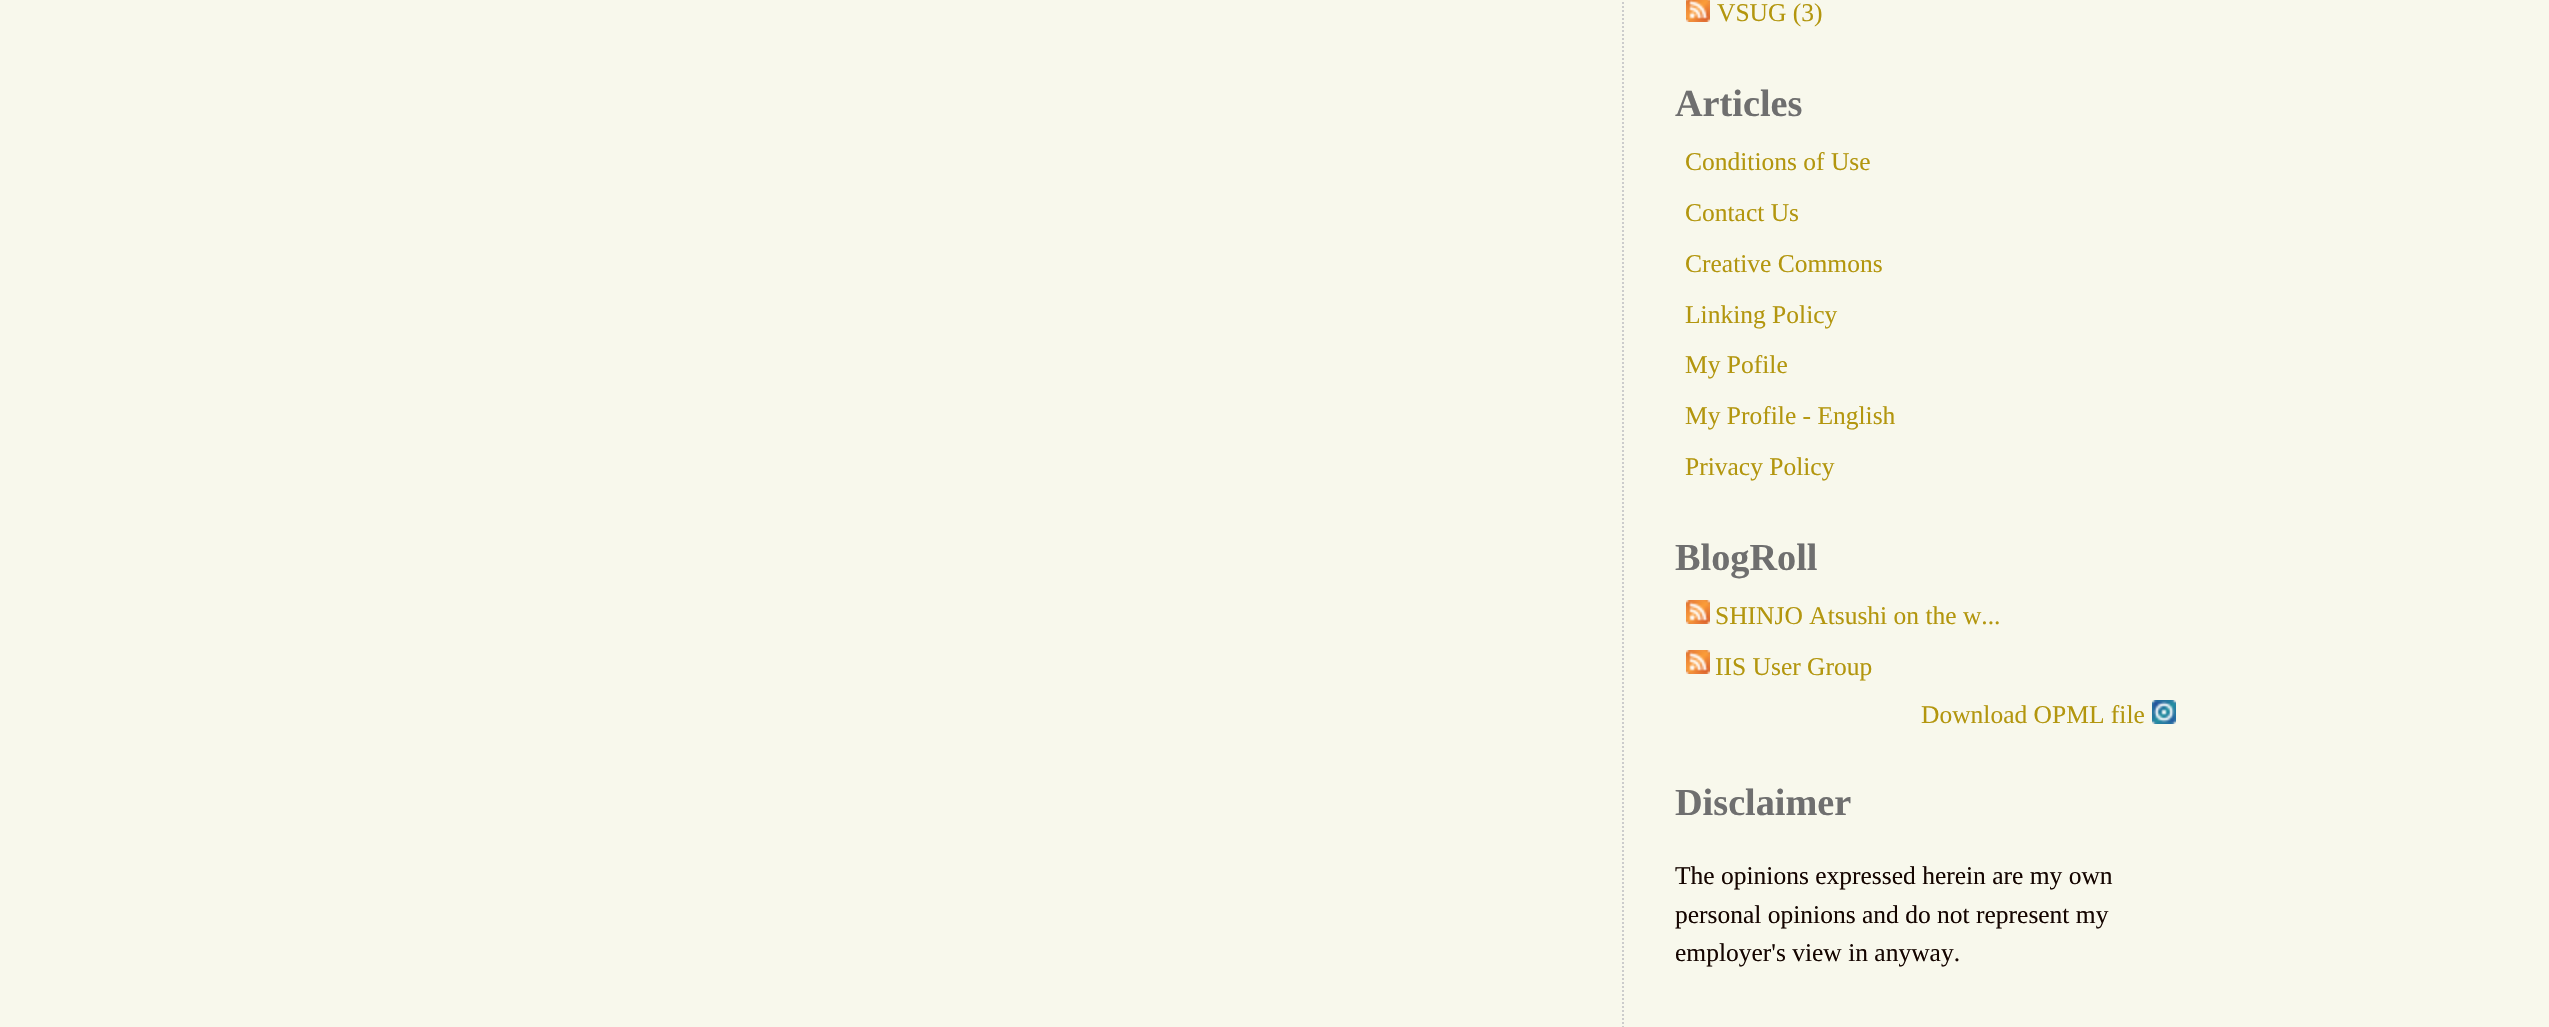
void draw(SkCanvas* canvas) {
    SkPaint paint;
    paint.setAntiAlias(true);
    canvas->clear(0xFFF8F8EC);
    paint.setStyle(SkPaint::kStroke_Style);
    paint.setStrokeWidth(2);
    paint.setColor(0xFFCCCCCC);
    paint.setPathEffect(SkDashPathEffect::Make({{2, 2}}, 0));
    canvas->drawPath(SkPathBuilder().moveTo(1623, -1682).lineTo(1623, 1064).detach(), paint);
    paint.setPathEffect(nullptr);
    canvas->drawImageRect(SkImages::DeferredFromEncodedData(SkData::MakeFromFileName("img1.png")), SkRect::MakeXYWH(1686, 0, 24, 22), SkSamplingOptions());
    SkFont font1(fontMgr->matchFamilyStyle("Liberation Serif", SkFontStyle::Normal()), 25.5f);
    font1.setSubpixel(true);
    paint.setStyle(SkPaint::kFill_Style);
    paint.setColor(0xFFB3960E);
    canvas->drawString("VSUG (3)", 1717, 21, font1, paint);
    SkFont font2(fontMgr->matchFamilyStyle("Liberation Serif", SkFontStyle::Bold()), 38.25f);
    font2.setSubpixel(true);
    paint.setColor(0xFF6F6F6F);
    canvas->drawString("Articles", 1675, 116, font2, paint);
    paint.setColor(0xFFB3960E);
    canvas->drawString("Conditions of Use", 1685, 170, font1, paint);
    canvas->drawString("Contact Us", 1685, 221, font1, paint);
    canvas->drawString("Creative Commons", 1685, 272, font1, paint);
    canvas->drawString("Linking Policy", 1685, 323, font1, paint);
    canvas->drawString("My Pofile", 1685, 373, font1, paint);
    canvas->drawString("My Profile - English", 1685, 424, font1, paint);
    canvas->drawString("Privacy Policy", 1685, 475, font1, paint);
    paint.setColor(0xFF6F6F6F);
    canvas->drawString("BlogRoll", 1675, 570, font2, paint);
    canvas->drawImageRect(SkImages::DeferredFromEncodedData(SkData::MakeFromFileName("img2.png")), SkRect::MakeXYWH(1686, 600, 24, 24), SkSamplingOptions());
    paint.setColor(0xFFB3960E);
    canvas->drawString("SHINJO Atsushi on the w...", 1715, 624, font1, paint);
    canvas->drawImageRect(SkImages::DeferredFromEncodedData(SkData::MakeFromFileName("img2.png")), SkRect::MakeXYWH(1686, 650, 24, 24), SkSamplingOptions());
    canvas->drawString("IIS User Group", 1715, 675, font1, paint);
    canvas->drawString("Download OPML file", 1921, 723, font1, paint);
    canvas->drawImageRect(SkImages::DeferredFromEncodedData(SkData::MakeFromFileName("img3.png")), SkRect::MakeXYWH(2152, 700, 24, 24), SkSamplingOptions());
    paint.setColor(0xFF6F6F6F);
    canvas->drawString("Disclaimer", 1675, 815, font2, paint);
    paint.setColor(0xFF150500);
    canvas->drawString("The opinions expressed herein are my own", 1675, 884, font1, paint);
    canvas->drawString("personal opinions and do not represent my", 1675, 923, font1, paint);
    canvas->drawString("employer's view in anyway.", 1675, 961, font1, paint);
}
